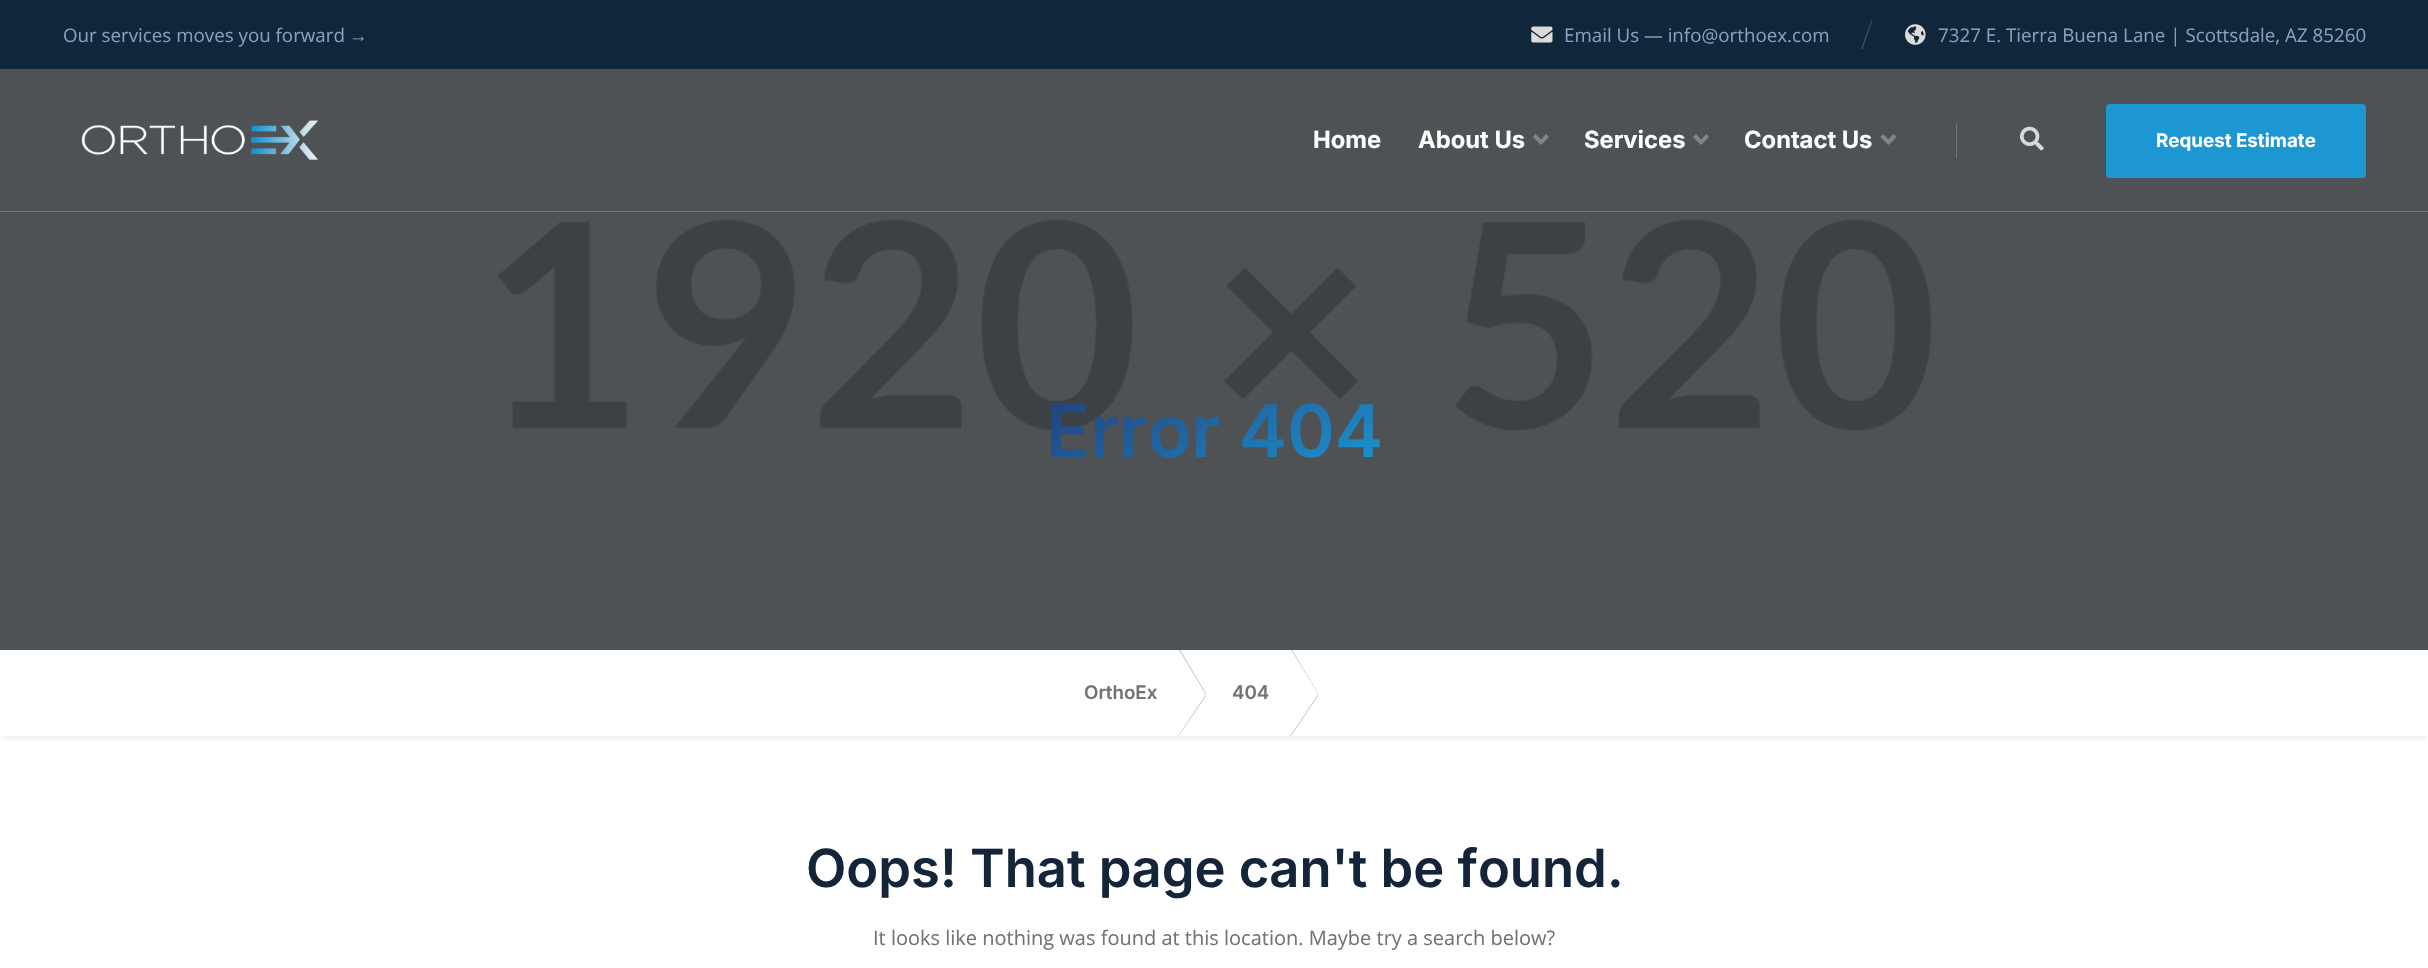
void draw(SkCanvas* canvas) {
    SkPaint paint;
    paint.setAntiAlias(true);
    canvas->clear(0xFFFFFFFF);
    paint.setColor(0xFF10263B);
    canvas->drawRect(SkRect::MakeXYWH(0, 0, 2428, 69), paint);
    SkFont font1(fontMgr->matchFamilyStyle("Open Sans", SkFontStyle::Normal()), 18.75f);
    font1.setSubpixel(true);
    paint.setColor(0xFF869FBD);
    canvas->drawString("Our services moves you forward", 63, 42, font1, paint);
    SkFont font2(fontMgr->matchFamilyStyle("Liberation Serif", SkFontStyle::Normal()), 18.75f);
    font2.setSubpixel(true);
    canvas->drawString("→", 349, 42, font2, paint);
    canvas->drawImageRect(SkImages::DeferredFromEncodedData(SkData::MakeFromFileName("img1.png")), SkRect::MakeXYWH(1531, 26, 22, 17), SkSamplingOptions());
    canvas->drawString("Email Us — info@orthoex.com", 1564, 42, font1, paint);
    paint.setColor(0xFF405162);
    canvas->drawPath(SkPathBuilder().moveTo(1871.5f, 20).lineTo(1872.5f, 20).lineTo(1862.5f, 49).lineTo(1861, 49).close().detach(), paint);
    canvas->drawImageRect(SkImages::DeferredFromEncodedData(SkData::MakeFromFileName("img2.png")), SkRect::MakeXYWH(1905, 24, 21, 21), SkSamplingOptions());
    paint.setColor(0xFF869FBD);
    canvas->drawString("7327 E. Tierra Buena Lane | Scottsdale, AZ 85260", 1938, 42, font1, paint);
    canvas->drawImageRect(SkImages::DeferredFromEncodedData(SkData::MakeFromFileName("img5.png")), SkRect::MakeXYWH(0, 69, 2428, 581), SkSamplingOptions());
    paint.setColor(0xFF727577);
    canvas->drawRect(SkRect::MakeXYWH(0, 211, 2428, 1), paint);
    canvas->drawImageRect(SkImages::DeferredFromEncodedData(SkData::MakeFromFileName("img3.png")), SkRect::MakeXYWH(81, 120, 238, 41), SkSamplingOptions());
    SkFont font3(fontMgr->matchFamilyStyle("Inter", SkFontStyle::Bold()), 23.75f);
    font3.setSubpixel(true);
    paint.setColor(0xFFFFFFFF);
    canvas->drawString("Home", 1313, 148, font3, paint);
    canvas->drawString("About Us", 1418, 148, font3, paint);
    paint.setColor(0xFF838688);
    canvas->drawPath(SkPathBuilder().moveTo(1549, 137).lineTo(1541, 145).lineTo(1541, 139.5f).lineTo(1546, 134).close().moveTo(1541, 145).lineTo(1533, 137).lineTo(1535.5f, 134).lineTo(1541, 139.5f).close().detach(), paint);
    paint.setColor(0xFFFFFFFF);
    canvas->drawString("Services", 1584, 148, font3, paint);
    paint.setColor(0xFF838688);
    canvas->drawPath(SkPathBuilder().moveTo(1709, 137).lineTo(1701, 145).lineTo(1701, 139.5f).lineTo(1706.5f, 134).close().moveTo(1701, 145).lineTo(1693, 137).lineTo(1696, 134).lineTo(1701, 139.5f).close().detach(), paint);
    paint.setColor(0xFFFFFFFF);
    canvas->drawString("Contact Us", 1744, 148, font3, paint);
    paint.setColor(0xFF838688);
    canvas->drawPath(SkPathBuilder().moveTo(1896.5f, 137).lineTo(1888.5f, 145).lineTo(1888.5f, 139.5f).lineTo(1893.5f, 134).close().detach(), paint);
    paint.setColor(0x4DFFFFFF);
    canvas->drawPath(SkPathBuilder().moveTo(1888.5f, 145).lineTo(1880.5f, 137).lineTo(1883, 134).lineTo(1888.5f, 139.5f).close().detach(), paint);
    paint.setColor(0xFF727577);
    canvas->drawRect(SkRect::MakeXYWH(1956, 123, 1, 35), paint);
    canvas->drawImageRect(SkImages::DeferredFromEncodedData(SkData::MakeFromFileName("img4.png")), SkRect::MakeXYWH(2020, 126, 24, 25), SkSamplingOptions());
    paint.setColor(0xFF1C97D2);
    canvas->drawRoundRect(SkRect::MakeXYWH(2106, 104, 260, 74), 4, 4, paint);
    SkFont font4(fontMgr->matchFamilyStyle("Inter", SkFontStyle::Bold()), 18.75f);
    font4.setSubpixel(true);
    paint.setColor(0xFFFFFFFF);
    canvas->drawString("Request Estimate", 2156, 147, font4, paint);
    SkFont font5(fontMgr->matchFamilyStyle("Inter", SkFontStyle(600, SkFontStyle::kNormal_Width, SkFontStyle::kUpright_Slant)), 72.5f);
    font5.setSubpixel(true);
    {
        const SkColor colors[] = {0xFF223D7B, 0xFF1C97D2};
        const float stops[] = {0, 1};
        const SkPoint ends[] = {{1153, 324}, {1276, 538}};
        paint.setShader(SkGradientShader::MakeLinear(ends, colors, stops, 2, SkTileMode::kClamp));
        paint.setAlpha(255);
    }
    canvas->drawString("Error 404", 1046, 457, font5, paint);
    canvas->save();
    canvas->clipRect(SkRect::MakeXYWH(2, 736, 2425, 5));
    paint.setShader(nullptr);
    paint.setColor(0x1F000000);
    paint.setMaskFilter(SkMaskFilter::MakeBlur(kNormal_SkBlurStyle, 5));
    canvas->drawRect(SkRect::MakeXYWH(3, 655, 2423, 81), paint);
    paint.setMaskFilter(nullptr);
    canvas->restore();
    SkFont font6(fontMgr->matchFamilyStyle("Inter", SkFontStyle(600, SkFontStyle::kNormal_Width, SkFontStyle::kUpright_Slant)), 18.75f);
    font6.setSubpixel(true);
    paint.setColor(0xFF737373);
    canvas->drawString("OrthoEx", 1084, 699, font6, paint);
    canvas->save();
    canvas->clipRect(SkRect::MakeXYWH(315, 650, 1800, 86));
    paint.setColor(0xFFD9D9D9);
    canvas->drawPath(SkPathBuilder(SkPathFillType::kEvenOdd).moveTo(1164, 622).lineTo(1205, 691).cubicTo(1206, 693, 1206, 696, 1205, 698).lineTo(1155, 771).cubicTo(1154, 773, 1152, 773, 1151, 771).lineTo(1110, 702).cubicTo(1109, 701, 1109, 698, 1110, 696).lineTo(1160, 623).cubicTo(1161, 621, 1163, 621, 1164, 622).close().moveTo(1163, 624).lineTo(1204, 692).cubicTo(1205, 693, 1205, 695, 1204, 697).lineTo(1155, 770).cubicTo(1153, 772, 1152, 772, 1151, 771).lineTo(1110, 702).cubicTo(1109, 701, 1109, 698, 1110, 696).lineTo(1160, 623).cubicTo(1160, 621, 1162, 622, 1163, 624).close().detach(), paint);
    canvas->restore();
    paint.setColor(0xFF737373);
    canvas->drawString("404", 1232, 699, font6, paint);
    canvas->save();
    canvas->clipRect(SkRect::MakeXYWH(315, 650, 1800, 86));
    paint.setColor(0xFFD9D9D9);
    canvas->drawPath(SkPathBuilder(SkPathFillType::kEvenOdd).moveTo(1276, 622).lineTo(1317, 691).cubicTo(1318, 693, 1318, 696, 1317, 698).lineTo(1268, 771).cubicTo(1266, 773, 1264, 773, 1263, 771).lineTo(1222, 702).cubicTo(1221, 701, 1221, 698, 1223, 696).lineTo(1272, 623).cubicTo(1273, 621, 1275, 621, 1276, 622).close().moveTo(1275, 624).lineTo(1317, 692).cubicTo(1317, 693, 1317, 695, 1316, 697).lineTo(1267, 770).cubicTo(1266, 772, 1264, 772, 1263, 771).lineTo(1222, 702).cubicTo(1221, 701, 1221, 698, 1223, 696).lineTo(1272, 623).cubicTo(1273, 621, 1274, 622, 1275, 624).close().detach(), paint);
    canvas->restore();
    SkFont font7(fontMgr->matchFamilyStyle("Inter", SkFontStyle(600, SkFontStyle::kNormal_Width, SkFontStyle::kUpright_Slant)), 52.5f);
    font7.setSubpixel(true);
    paint.setColor(0xFF152539);
    canvas->drawString("Oops! That page can't be found.", 806, 887, font7, paint);
    SkFont font8(fontMgr->matchFamilyStyle("Open Sans", SkFontStyle::Normal()), 20);
    font8.setSubpixel(true);
    paint.setColor(0xFF737373);
    canvas->drawString("It looks like nothing was found at this location. Maybe try a search below?", 873, 945, font8, paint);
}
